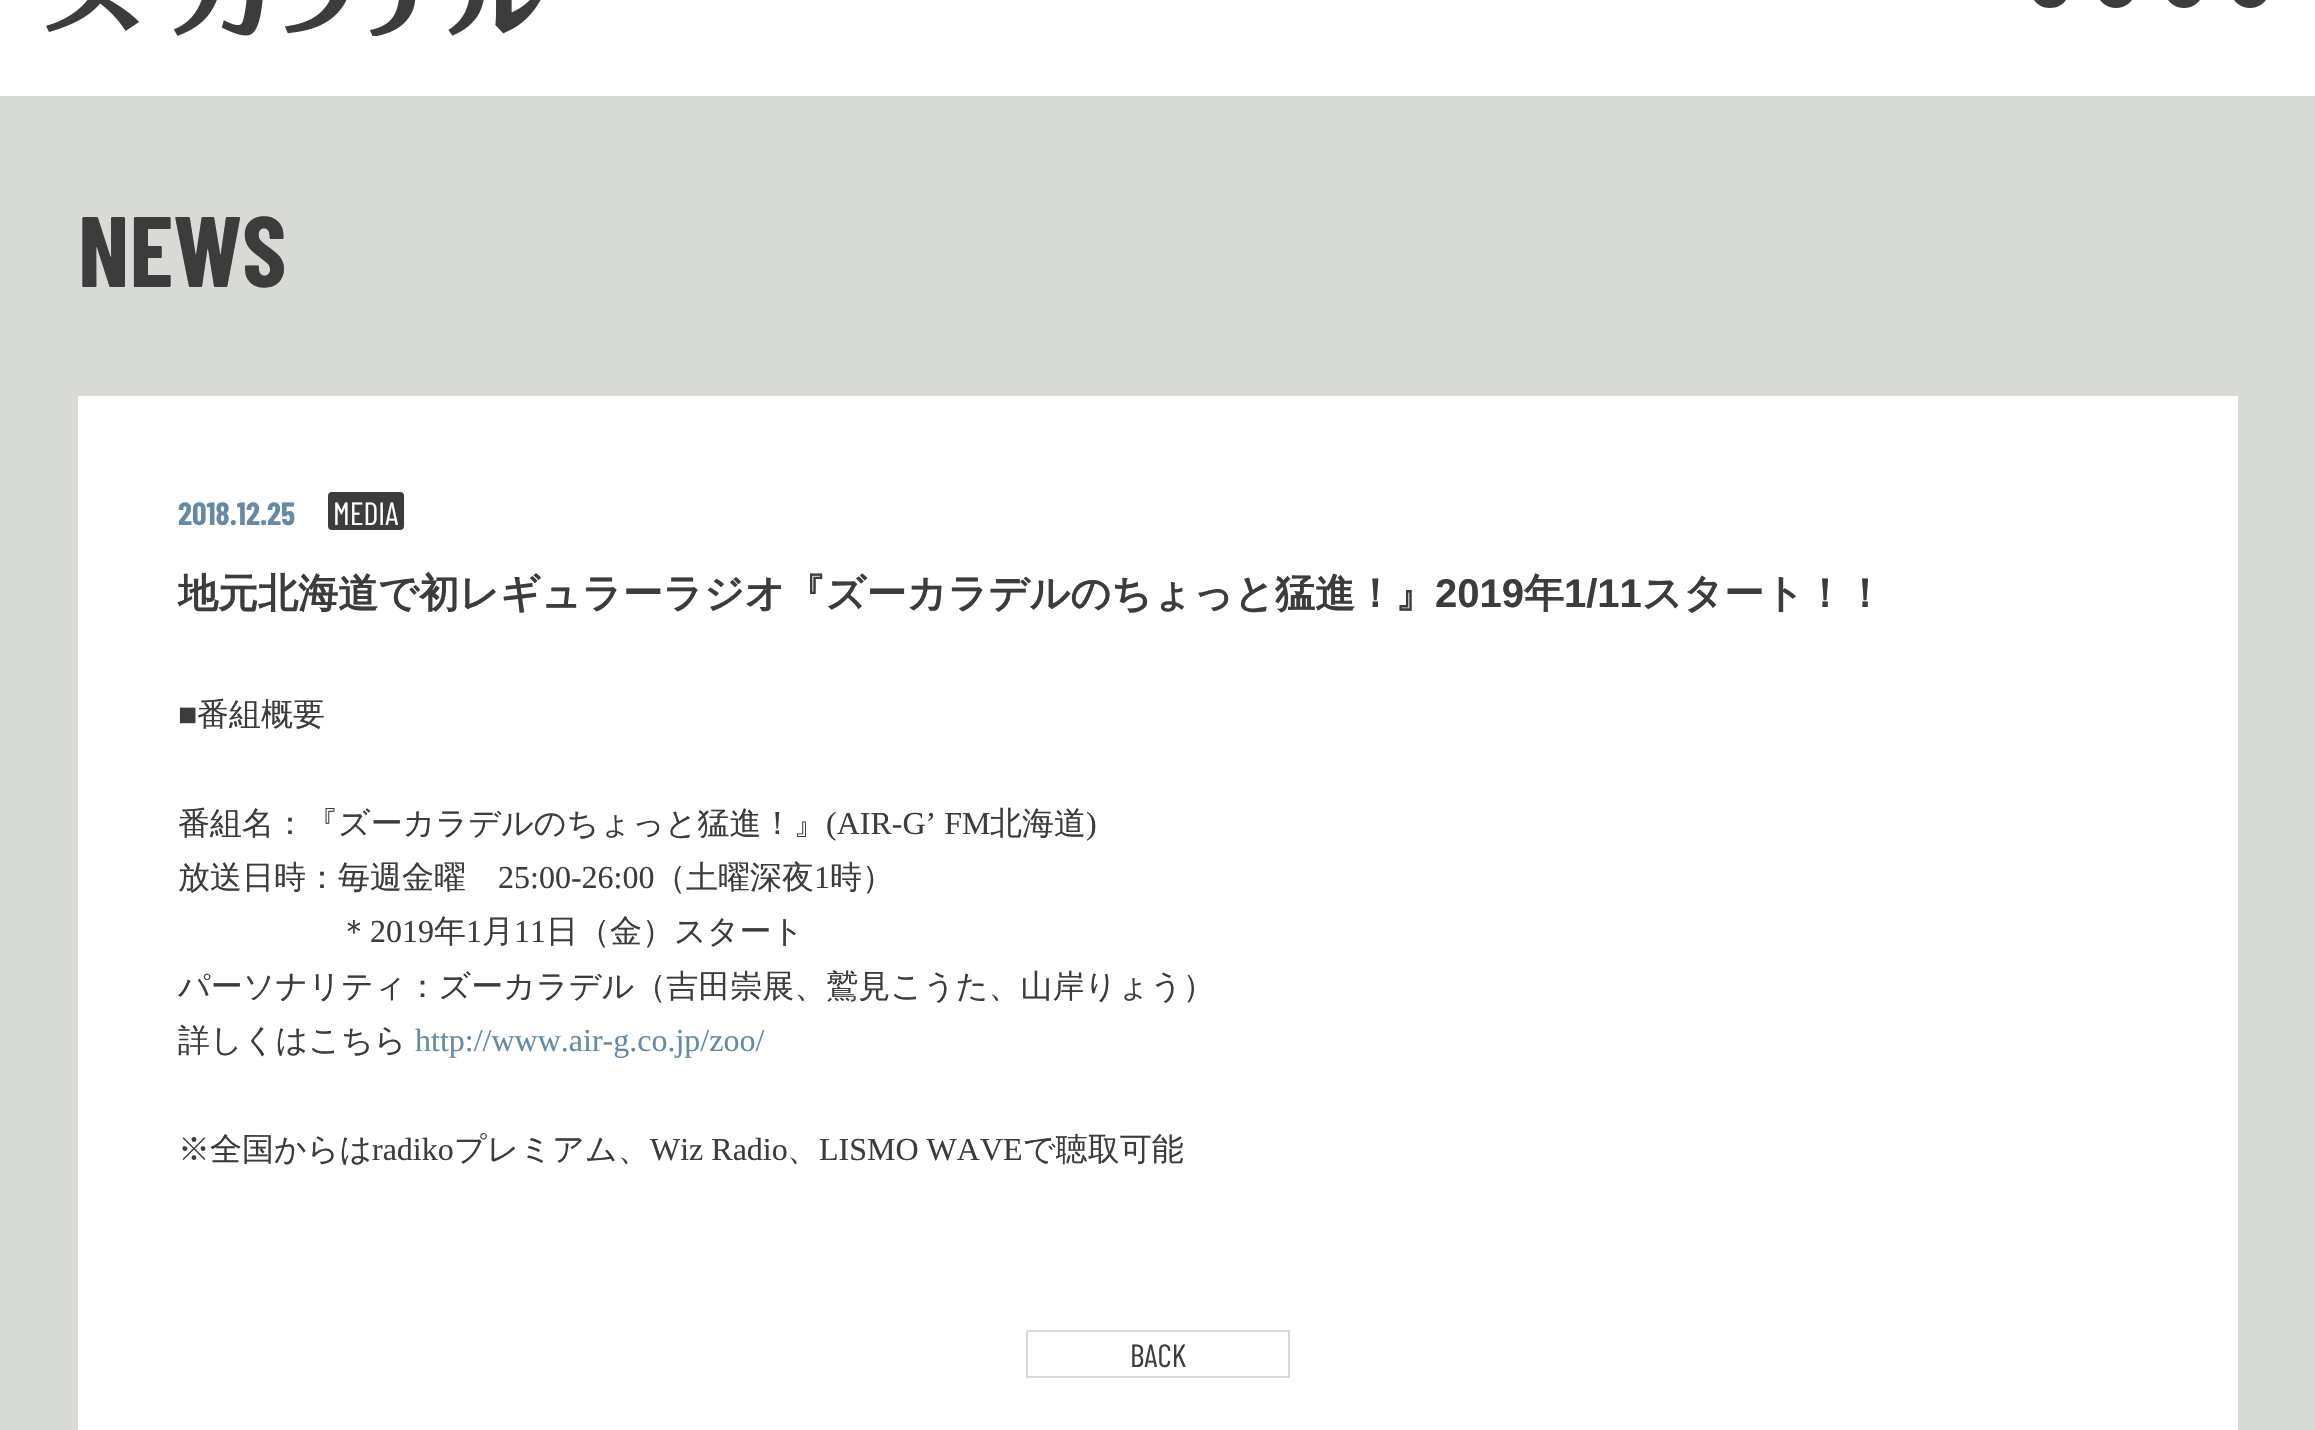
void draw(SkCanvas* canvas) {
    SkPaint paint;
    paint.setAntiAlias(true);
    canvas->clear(0xFFFFFFFF);
    canvas->drawImageRect(SkImages::DeferredFromEncodedData(SkData::MakeFromFileName("img1.png")), SkRect::MakeXYWH(46, 0, 495, 36), SkSamplingOptions());
    paint.setColor(0xFF3C3C3C);
    canvas->drawPath(SkPathBuilder().moveTo(2050, -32).cubicTo(2024, -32, 2024, 8, 2050, 8).cubicTo(2076, 8, 2076, -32, 2050, -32).close().moveTo(2054, -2).lineTo(2049, -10).lineTo(2042, -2).lineTo(2041, -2).lineTo(2048, -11).lineTo(2041, -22).lineTo(2046, -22).lineTo(2051, -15).lineTo(2057, -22).lineTo(2059, -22).lineTo(2052, -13).lineTo(2059, -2).close().detach(), paint);
    canvas->drawImageRect(SkImages::DeferredFromEncodedData(SkData::MakeFromFileName("img2.png")), SkRect::MakeXYWH(2100, 0, 32, 8), SkSamplingOptions());
    canvas->drawImageRect(SkImages::DeferredFromEncodedData(SkData::MakeFromFileName("img2.png")), SkRect::MakeXYWH(2168, 0, 32, 8), SkSamplingOptions());
    canvas->drawImageRect(SkImages::DeferredFromEncodedData(SkData::MakeFromFileName("img2.png")), SkRect::MakeXYWH(2234, 0, 32, 8), SkSamplingOptions());
    paint.setColor(0xFFD7DAD5);
    canvas->drawRect(SkRect::MakeXYWH(0, 96, 2315, 1334), paint);
    SkFont font1(fontMgr->matchFamilyStyle("Barlow Condensed", SkFontStyle::Bold()), 100);
    font1.setSubpixel(true);
    paint.setColor(0xFF3C3C3C);
    canvas->drawString("NEWS", 78, 287, font1, paint);
    paint.setColor(0xFFFFFFFF);
    canvas->drawRect(SkRect::MakeXYWH(78, 396, 2160, 1034), paint);
    SkFont font2(fontMgr->matchFamilyStyle("Barlow Condensed", SkFontStyle::Bold()), 32);
    font2.setSubpixel(true);
    paint.setColor(0xFF6589A6);
    canvas->drawString("2018.12.25", 178, 525, font2, paint);
    paint.setColor(0xFF3C3C3C);
    canvas->drawRoundRect(SkRect::MakeXYWH(328, 492, 76, 38), 4, 4, paint);
    SkFont font3(fontMgr->matchFamilyStyle("Barlow Condensed", SkFontStyle::Normal()), 32);
    font3.setSubpixel(true);
    paint.setColor(0xFFFFFFFF);
    canvas->drawString("MEDIA", 333, 525, font3, paint);
    SkFont font4(fontMgr->matchFamilyStyle("WenQuanYi Zen Hei", SkFontStyle::Bold()), 40);
    font4.setSubpixel(true);
    paint.setColor(0xFF3C3C3C);
    canvas->drawString("地元北海道で初レギュラーラジオ『ズーカラデルのちょっと猛進！』", 178, 607, font4, paint);
    SkFont font5(fontMgr->matchFamilyStyle("Liberation Sans", SkFontStyle::Bold()), 40);
    font5.setSubpixel(true);
    canvas->drawString("2019", 1435, 607, font5, paint);
    canvas->drawString("年", 1524, 607, font4, paint);
    canvas->drawString("1/11", 1564, 607, font5, paint);
    canvas->drawString("スタート！！", 1642, 607, font4, paint);
    SkFont font6(fontMgr->matchFamilyStyle("Liberation Serif", SkFontStyle::Normal()), 32);
    font6.setSubpixel(true);
    canvas->drawString("■", 178, 725, font6, paint);
    SkFont font7(fontMgr->matchFamilyStyle("WenQuanYi Zen Hei", SkFontStyle(500, SkFontStyle::kNormal_Width, SkFontStyle::kUpright_Slant)), 32);
    font7.setSubpixel(true);
    canvas->drawString("番組概要", 197, 725, font7, paint);
    canvas->drawString("番組名：『ズーカラデルのちょっと猛進！』", 178, 834, font7, paint);
    canvas->drawString("(AIR-G’ FM", 826, 834, font6, paint);
    canvas->drawString("北海道", 990, 834, font7, paint);
    canvas->drawString(")", 1086, 834, font6, paint);
    canvas->drawString("放送日時：毎週金曜", 178, 888, font7, paint);
    canvas->drawString("25:00-26:00", 498, 888, font6, paint);
    canvas->drawString("（土曜深夜", 654, 888, font7, paint);
    canvas->drawString("1", 814, 888, font6, paint);
    canvas->drawString("時）", 830, 888, font7, paint);
    canvas->drawString("＊", 338, 942, font7, paint);
    canvas->drawString("2019", 370, 942, font6, paint);
    canvas->drawString("年", 434, 942, font7, paint);
    canvas->drawString("1", 466, 942, font6, paint);
    canvas->drawString("月", 482, 942, font7, paint);
    canvas->drawString("11", 514, 942, font6, paint);
    canvas->drawString("日（金）スタート", 546, 942, font7, paint);
    canvas->drawString("パーソナリティ：ズーカラデル（吉田崇展、鷲見こうた、山岸りょう）", 178, 997, font7, paint);
    canvas->drawString("詳しくはこちら", 178, 1051, font7, paint);
    paint.setColor(0xFF6589A6);
    canvas->drawString("http://www.air-g.co.jp/zoo/", 415, 1051, font6, paint);
    paint.setColor(0xFF3C3C3C);
    canvas->drawString("※全国からは", 178, 1160, font7, paint);
    canvas->drawString("radiko", 372, 1160, font6, paint);
    canvas->drawString("プレミアム、", 454, 1160, font7, paint);
    canvas->drawString("Wiz Radio", 650, 1160, font6, paint);
    canvas->drawString("、", 787, 1160, font7, paint);
    canvas->drawString("LISMO WAVE", 819, 1160, font6, paint);
    canvas->drawString("で聴取可能", 1023, 1160, font7, paint);
    paint.setStyle(SkPaint::kStroke_Style);
    paint.setStrokeWidth(2);
    paint.setColor(0xFFD7DAD5);
    canvas->drawRect(SkRect::MakeXYWH(1027, 1331, 262, 46), paint);
    paint.setStyle(SkPaint::kFill_Style);
    paint.setColor(0xFF3C3C3C);
    canvas->drawString("BACK", 1130, 1367, font3, paint);
}
